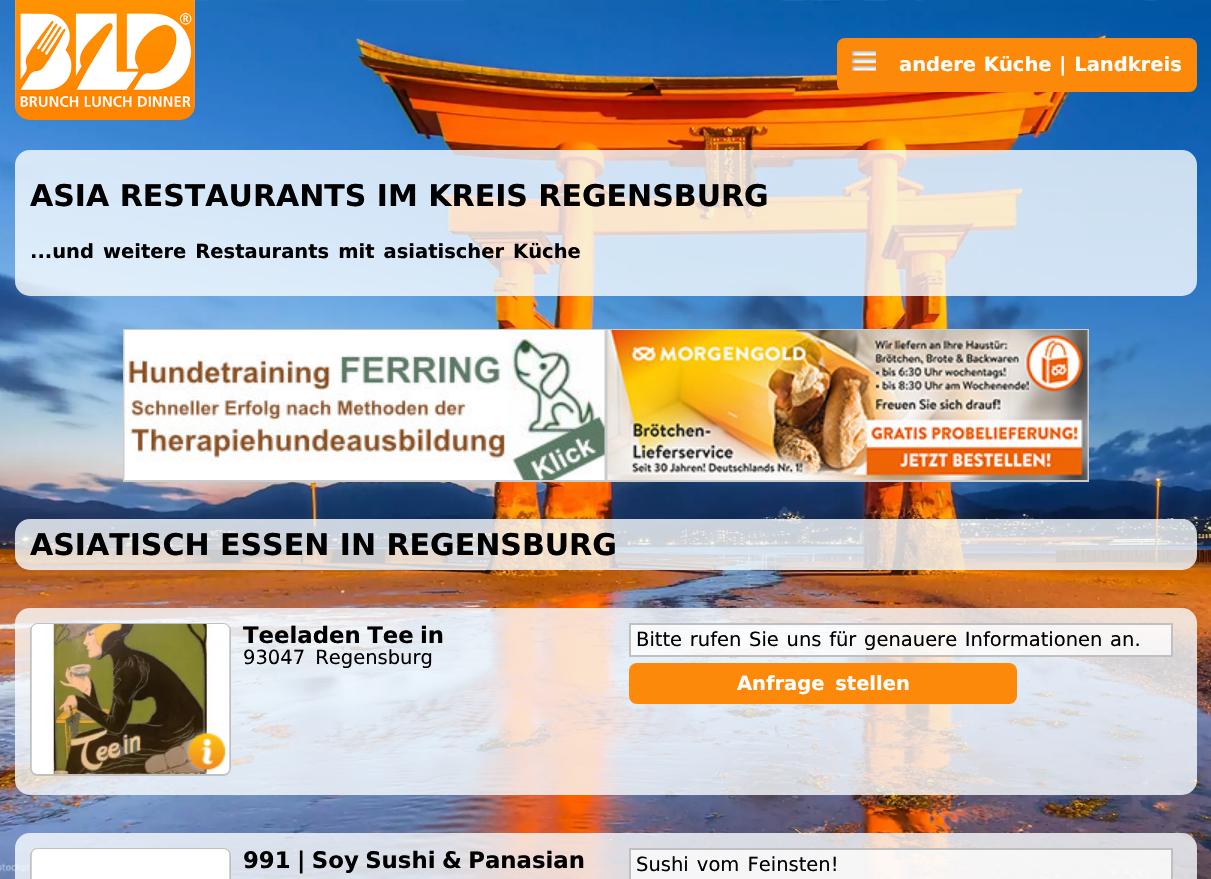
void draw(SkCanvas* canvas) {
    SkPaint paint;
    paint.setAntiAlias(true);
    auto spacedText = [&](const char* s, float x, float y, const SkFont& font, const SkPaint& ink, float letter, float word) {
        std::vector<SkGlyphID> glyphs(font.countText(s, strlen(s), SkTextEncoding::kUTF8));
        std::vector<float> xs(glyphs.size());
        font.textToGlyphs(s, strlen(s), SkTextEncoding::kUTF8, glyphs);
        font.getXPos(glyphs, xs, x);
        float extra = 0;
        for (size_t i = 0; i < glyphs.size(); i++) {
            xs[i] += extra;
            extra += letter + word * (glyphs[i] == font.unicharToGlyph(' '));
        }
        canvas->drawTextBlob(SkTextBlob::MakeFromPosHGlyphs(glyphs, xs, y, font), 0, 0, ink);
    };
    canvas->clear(0xFFFFFFFF);
    canvas->drawImageRect(SkImages::DeferredFromEncodedData(SkData::MakeFromFileName("img1.png")), SkRect::MakeXYWH(0, 0, 1211, 879), SkSamplingOptions());
    canvas->drawImageRect(SkImages::DeferredFromEncodedData(SkData::MakeFromFileName("img2.png")), SkRect::MakeXYWH(15, 0, 180, 120), SkSamplingOptions());
    paint.setColor(0xFFFD890A);
    canvas->drawRoundRect(SkRect::MakeXYWH(837, 38, 360, 54), 8, 8, paint);
    canvas->drawImageRect(SkImages::DeferredFromEncodedData(SkData::MakeFromFileName("img3.png")), SkRect::MakeXYWH(852, 51, 24, 20), SkSamplingOptions());
    SkFont font1(fontMgr->matchFamilyStyle("DejaVu Sans", SkFontStyle::Bold()), 19.5f);
    font1.setSubpixel(true);
    paint.setColor(0xFFFFFFFF);
    spacedText("andere Küche | Landkreis", 899, 71, font1, paint, 0, 1);
    paint.setColor(0xCCF9FCFF);
    canvas->drawRoundRect(SkRect::MakeXYWH(15, 150, 1182, 146), 15, 15, paint);
    SkFont font2(fontMgr->matchFamilyStyle("DejaVu Sans", SkFontStyle::Bold()), 30);
    font2.setSubpixel(true);
    paint.setColor(0xFF000000);
    canvas->drawString("ASIA RESTAURANTS IM KREIS REGENSBURG", 30, 206, font2, paint);
    spacedText("...und weitere Restaurants mit asiatischer Küche", 30, 258, font1, paint, 0, 2.25f);
    paint.setStyle(SkPaint::kStroke_Style);
    paint.setStrokeWidth(2);
    paint.setColor(0xFFCCCCCC);
    canvas->drawRect(SkRect::MakeXYWH(124, 330, 481, 151), paint);
    canvas->drawImageRect(SkImages::DeferredFromEncodedData(SkData::MakeFromFileName("img4.png")), SkRect::MakeXYWH(124, 330, 481, 150), SkSamplingOptions());
    canvas->drawRect(SkRect::MakeXYWH(607, 330, 481, 151), paint);
    canvas->drawImageRect(SkImages::DeferredFromEncodedData(SkData::MakeFromFileName("img5.png")), SkRect::MakeXYWH(607, 330, 481, 150), SkSamplingOptions());
    paint.setStyle(SkPaint::kFill_Style);
    paint.setColor(0xCCF9FCFF);
    canvas->drawRoundRect(SkRect::MakeXYWH(15, 519, 1182, 51), 15, 15, paint);
    paint.setColor(0xFF000000);
    canvas->drawString("ASIATISCH ESSEN IN REGENSBURG", 30, 555, font2, paint);
    paint.setColor(0xCCF9FCFF);
    canvas->drawRoundRect(SkRect::MakeXYWH(15, 608, 1182, 187), 15, 15, paint);
    paint.setStyle(SkPaint::kStroke_Style);
    paint.setColor(0xFFC0C0C0);
    canvas->drawRoundRect(SkRect::MakeXYWH(31, 624, 199, 151), 7, 7, paint);
    canvas->drawImageRect(SkImages::DeferredFromEncodedData(SkData::MakeFromFileName("img6.png")), SkRect::MakeXYWH(31, 624, 199, 150), SkSamplingOptions());
    canvas->drawImageRect(SkImages::DeferredFromEncodedData(SkData::MakeFromFileName("img7.png")), SkRect::MakeXYWH(183, 728, 43, 46), SkSamplingOptions());
    SkFont font3(fontMgr->matchFamilyStyle("DejaVu Sans", SkFontStyle::Bold()), 22.8f);
    font3.setSubpixel(true);
    paint.setStyle(SkPaint::kFill_Style);
    paint.setColor(0xFF000000);
    spacedText("Teeladen Tee in", 243, 643, font3, paint, 0, -1.5f);
    SkFont font4(fontMgr->matchFamilyStyle("DejaVu Sans", SkFontStyle::Normal()), 19.5f);
    font4.setSubpixel(true);
    spacedText("93047 Regensburg", 243, 664, font4, paint, 0, 4);
    paint.setColor(0xBFFFFFFF);
    canvas->drawRect(SkRect::MakeXYWH(630, 624, 542, 32), paint);
    paint.setStyle(SkPaint::kStroke_Style);
    paint.setColor(0xFFC0C0C0);
    canvas->drawRect(SkRect::MakeXYWH(630, 624, 542, 32), paint);
    paint.setStyle(SkPaint::kFill_Style);
    paint.setColor(0xFF000000);
    spacedText("Bitte rufen Sie uns für genauere Informationen an.", 636, 646, font4, paint, 0, 1.5f);
    paint.setColor(0xFFFD890A);
    canvas->drawRoundRect(SkRect::MakeXYWH(629, 663, 388, 41), 8, 8, paint);
    paint.setColor(0xFFFFFFFF);
    spacedText("Anfrage stellen", 737, 690, font1, paint, 0, 4);
    paint.setColor(0xCCF9FCFF);
    canvas->drawRoundRect(SkRect::MakeXYWH(15, 833, 1182, 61), 15, 15, paint);
    paint.setStyle(SkPaint::kStroke_Style);
    paint.setColor(0xFFC0C0C0);
    canvas->drawRoundRect(SkRect::MakeXYWH(31, 849, 199, 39), 7, 7, paint);
    canvas->drawImageRect(SkImages::DeferredFromEncodedData(SkData::MakeFromFileName("img8.png")), SkRect::MakeXYWH(31, 849, 199, 30), SkSamplingOptions());
    paint.setStyle(SkPaint::kFill_Style);
    paint.setColor(0xFF000000);
    spacedText("991 | Soy Sushi & Panasian", 243, 868, font3, paint, 0, -1.5f);
    paint.setColor(0xBFFFFFFF);
    canvas->drawRect(SkRect::MakeXYWH(630, 849, 542, 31), paint);
    paint.setStyle(SkPaint::kStroke_Style);
    paint.setColor(0xFFC0C0C0);
    canvas->drawRect(SkRect::MakeXYWH(630, 849, 542, 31), paint);
    paint.setStyle(SkPaint::kFill_Style);
    paint.setColor(0xFF000000);
    spacedText("Sushi vom Feinsten!", 636, 871, font4, paint, 0, 2);
}
